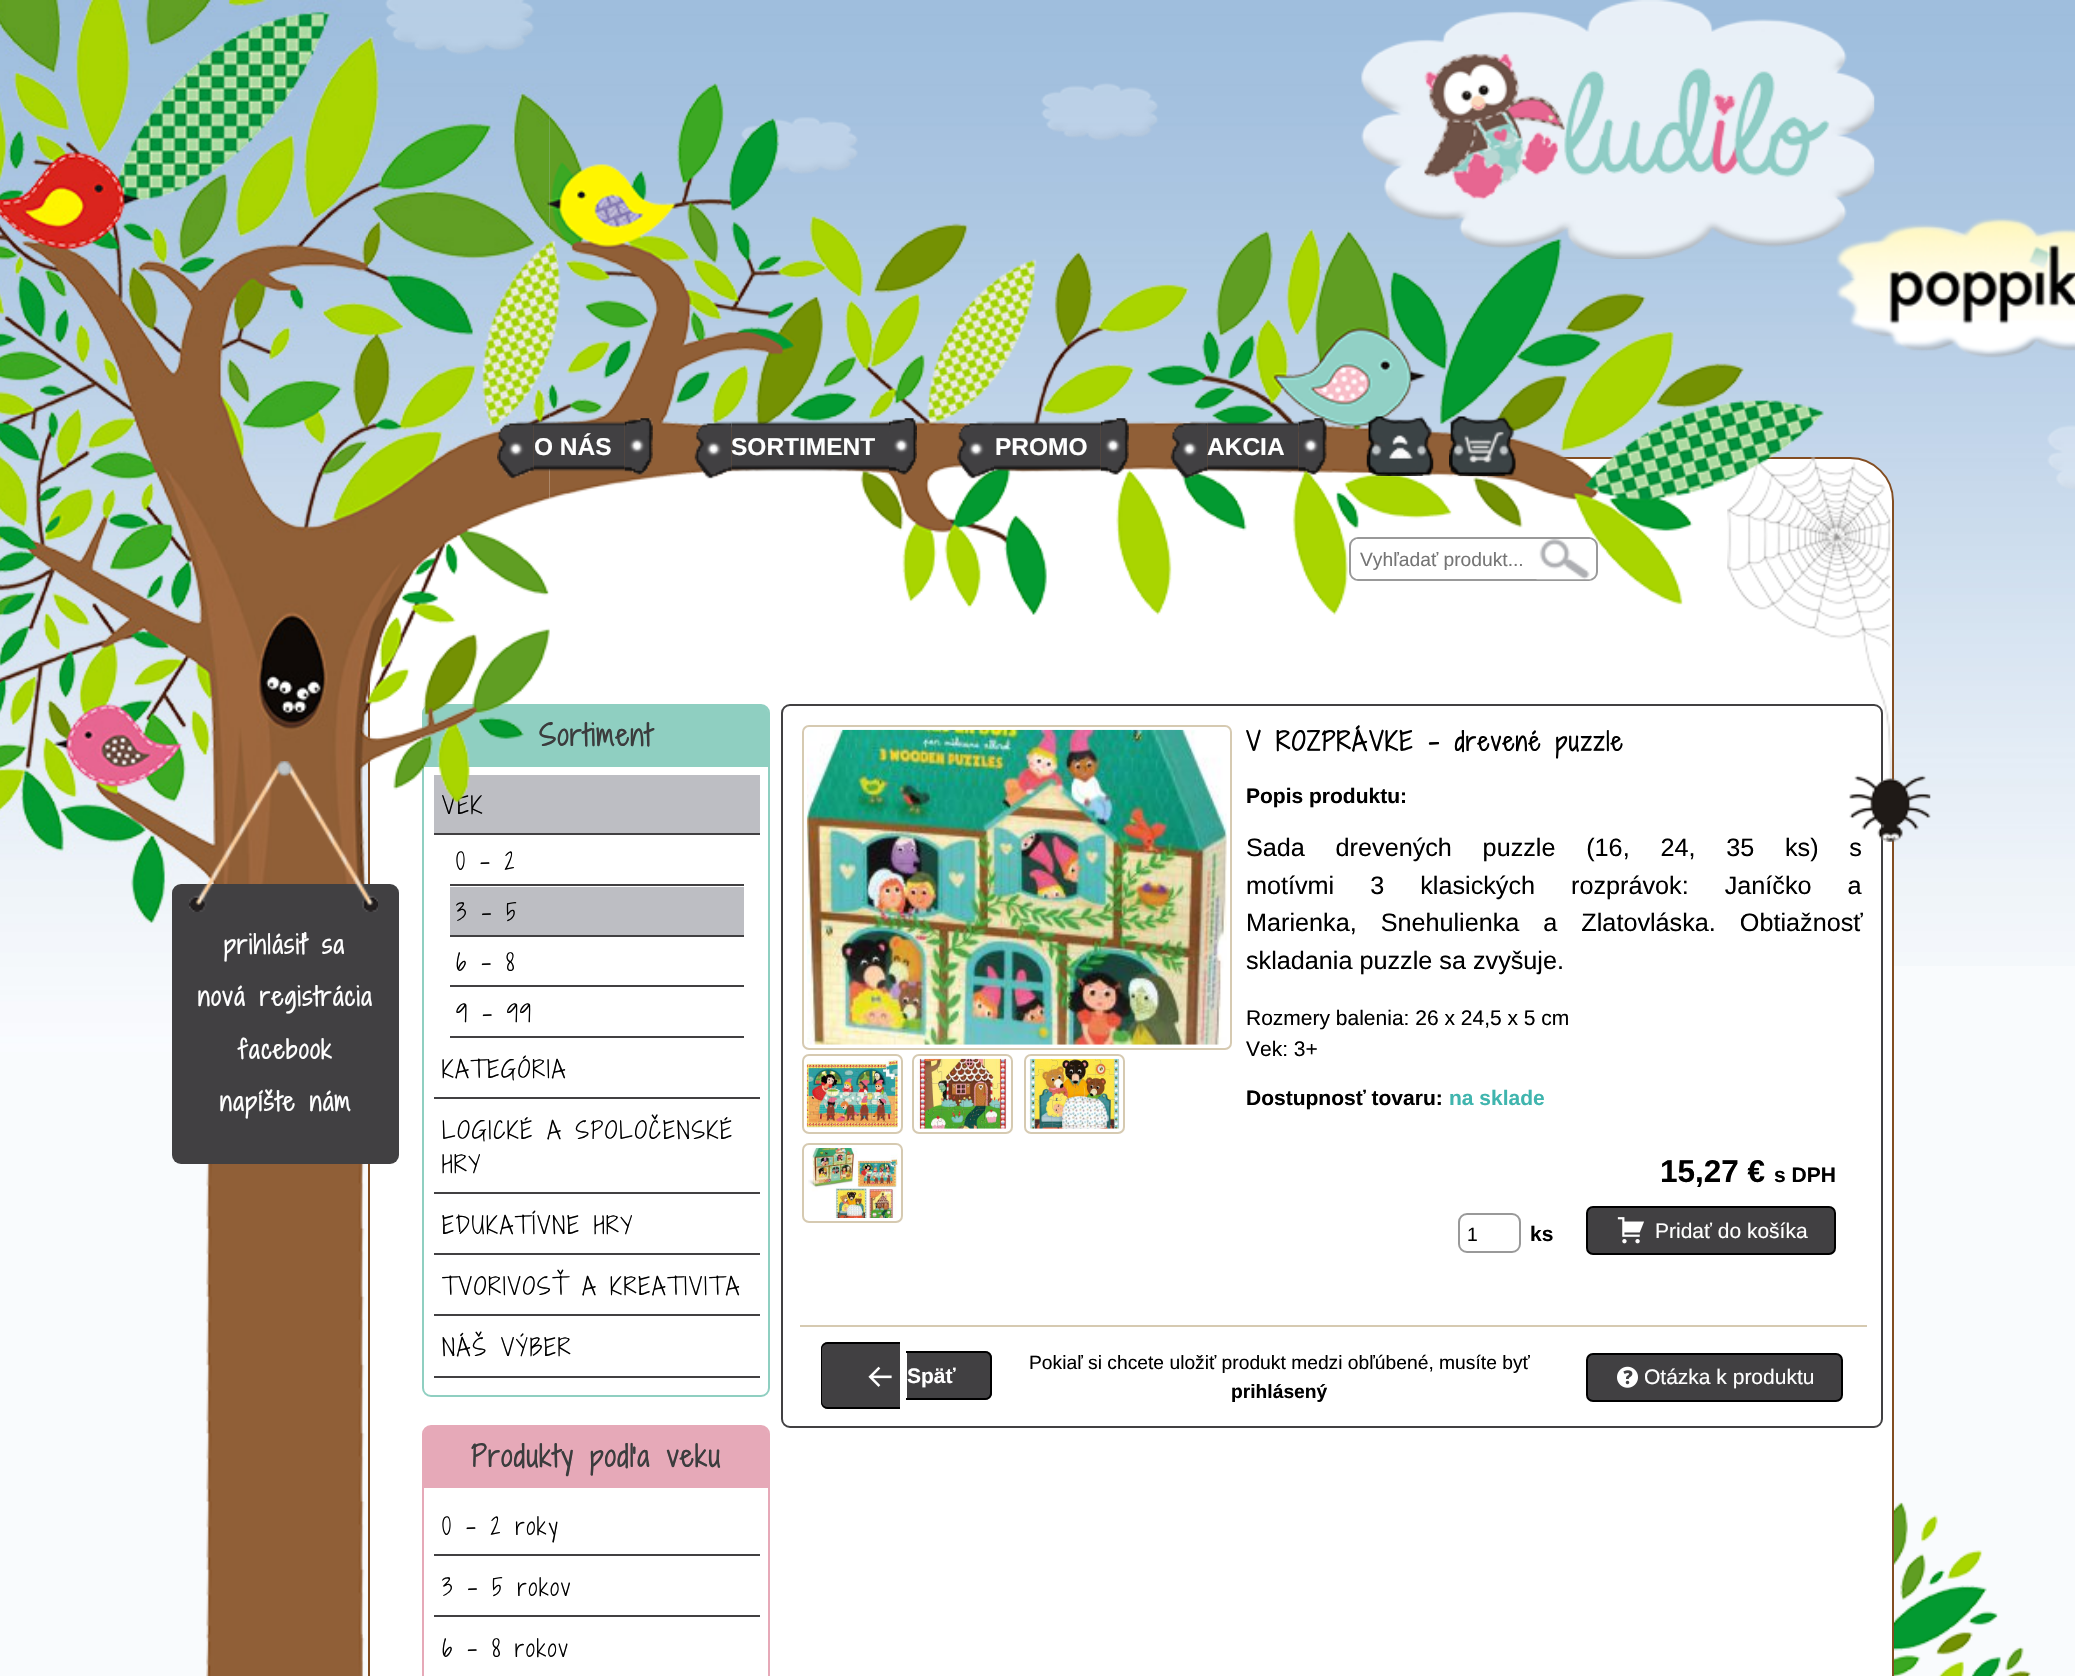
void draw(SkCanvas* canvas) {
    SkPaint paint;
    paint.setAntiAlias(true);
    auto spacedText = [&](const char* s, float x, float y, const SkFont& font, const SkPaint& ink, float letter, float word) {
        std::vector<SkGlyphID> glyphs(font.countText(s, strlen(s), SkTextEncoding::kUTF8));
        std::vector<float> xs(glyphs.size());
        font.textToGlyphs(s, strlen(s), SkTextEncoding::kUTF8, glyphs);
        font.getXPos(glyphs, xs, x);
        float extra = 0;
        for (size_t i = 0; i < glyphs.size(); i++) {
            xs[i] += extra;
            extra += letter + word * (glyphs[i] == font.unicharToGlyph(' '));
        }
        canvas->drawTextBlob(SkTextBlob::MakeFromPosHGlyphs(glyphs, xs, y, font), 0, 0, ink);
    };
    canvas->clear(0xFFF9FBFD);
    canvas->drawImageRect(SkImages::DeferredFromEncodedData(SkData::MakeFromFileName("img1.png")), SkRect::MakeXYWH(367, 0, 1708, 966), SkSamplingOptions());
    canvas->drawImageRect(SkImages::DeferredFromEncodedData(SkData::MakeFromFileName("img2.png")), SkRect::MakeXYWH(206, 1164, 159, 512), SkSamplingOptions());
    paint.setColor(0xFFFFFFFF);
    canvas->drawRoundRect(SkRect::MakeXYWH(369, 458, 1524, 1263), 43, 43, paint);
    paint.setStyle(SkPaint::kStroke_Style);
    paint.setStrokeWidth(2);
    paint.setColor(0xFF834D21);
    canvas->drawRoundRect(SkRect::MakeXYWH(369, 458, 1524, 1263), 43, 43, paint);
    paint.setColor(0xFF8FCFC1);
    canvas->drawRoundRect(SkRect::MakeXYWH(423, 705, 346, 691), 8, 8, paint);
    paint.setStyle(SkPaint::kFill_Style);
    canvas->drawPath(SkPathBuilder().moveTo(431, 705).lineTo(761, 705).cubicTo(765, 705, 768, 708, 768, 712).lineTo(768, 767).lineTo(424, 767).lineTo(424, 712).cubicTo(424, 708, 427, 705, 431, 705).close().detach(), paint);
    SkFont font1(fontMgr->matchFamilyStyle("Shadows Into Light Two", SkFontStyle::Bold()), 28);
    font1.setSubpixel(true);
    paint.setColor(0xFF3B3C3D);
    spacedText("Sortiment", 539, 746, font1, paint, 1.75f, 0);
    paint.setColor(0xFFBDBEC3);
    canvas->drawRect(SkRect::MakeXYWH(434, 775, 326, 58), paint);
    SkFont font2(fontMgr->matchFamilyStyle("Shadows Into Light Two", SkFontStyle(300, SkFontStyle::kNormal_Width, SkFontStyle::kUpright_Slant)), 22.75f);
    font2.setSubpixel(true);
    paint.setColor(0xFF000000);
    spacedText("VEK", 442, 814, font2, paint, 1.75f, 0);
    canvas->drawImageRect(SkImages::DeferredFromEncodedData(SkData::MakeFromFileName("img4.png")), SkRect::MakeXYWH(367, 0, 183, 804), SkSamplingOptions());
    canvas->drawImageRect(SkImages::DeferredFromEncodedData(SkData::MakeFromFileName("img3.png")), SkRect::MakeXYWH(0, 0, 368, 1052), SkSamplingOptions());
    paint.setStyle(SkPaint::kStroke_Style);
    paint.setColor(0xFF414042);
    canvas->drawRoundRect(SkRect::MakeXYWH(782, 705, 1100, 722), 8, 8, paint);
    SkFont font3(fontMgr->matchFamilyStyle("Liberation Sans", SkFontStyle::Normal()), 25.2f);
    font3.setSubpixel(true);
    paint.setStyle(SkPaint::kFill_Style);
    paint.setColor(0xFF000000);
    spacedText("Sada drevených puzzle (16, 24, 35 ks) s", 1246, 856, font3, paint, 0, 23.75f);
    canvas->drawImageRect(SkImages::DeferredFromEncodedData(SkData::MakeFromFileName("img24.png")), SkRect::MakeXYWH(1727, 456, 204, 386), SkSamplingOptions());
    canvas->drawImageRect(SkImages::DeferredFromEncodedData(SkData::MakeFromFileName("img5.png")), SkRect::MakeXYWH(385, 0, 1690, 489), SkSamplingOptions());
    canvas->drawImageRect(SkImages::DeferredFromEncodedData(SkData::MakeFromFileName("img8.png")), SkRect::MakeXYWH(549, 83, 1275, 532), SkSamplingOptions());
    canvas->drawImageRect(SkImages::DeferredFromEncodedData(SkData::MakeFromFileName("img6.png")), SkRect::MakeXYWH(1361, 0, 514, 259), SkSamplingOptions());
    canvas->drawImageRect(SkImages::DeferredFromEncodedData(SkData::MakeFromFileName("img7.png")), SkRect::MakeXYWH(1836, 218, 239, 136), SkSamplingOptions());
    canvas->drawImageRect(SkImages::DeferredFromEncodedData(SkData::MakeFromFileName("img9.png")), SkRect::MakeXYWH(497, 421, 37, 59), SkSamplingOptions());
    canvas->drawImageRect(SkImages::DeferredFromEncodedData(SkData::MakeFromFileName("img10.png")), SkRect::MakeXYWH(533, 421, 92, 51), SkSamplingOptions());
    SkFont font4(fontMgr->matchFamilyStyle("Liberation Sans", SkFontStyle::Bold()), 24.5f);
    font4.setSubpixel(true);
    paint.setColor(0xFFFFFFFF);
    canvas->drawString("O NÁS", 534, 455, font4, paint);
    canvas->drawImageRect(SkImages::DeferredFromEncodedData(SkData::MakeFromFileName("img11.png")), SkRect::MakeXYWH(624, 418, 29, 57), SkSamplingOptions());
    canvas->drawImageRect(SkImages::DeferredFromEncodedData(SkData::MakeFromFileName("img12.png")), SkRect::MakeXYWH(694, 421, 38, 58), SkSamplingOptions());
    canvas->drawImageRect(SkImages::DeferredFromEncodedData(SkData::MakeFromFileName("img13.png")), SkRect::MakeXYWH(731, 421, 158, 51), SkSamplingOptions());
    canvas->drawString("SORTIMENT", 731, 455, font4, paint);
    canvas->drawImageRect(SkImages::DeferredFromEncodedData(SkData::MakeFromFileName("img14.png")), SkRect::MakeXYWH(889, 418, 28, 57), SkSamplingOptions());
    canvas->drawImageRect(SkImages::DeferredFromEncodedData(SkData::MakeFromFileName("img15.png")), SkRect::MakeXYWH(957, 421, 37, 58), SkSamplingOptions());
    canvas->drawImageRect(SkImages::DeferredFromEncodedData(SkData::MakeFromFileName("img16.png")), SkRect::MakeXYWH(994, 421, 107, 51), SkSamplingOptions());
    canvas->drawString("PROMO", 995, 455, font4, paint);
    canvas->drawImageRect(SkImages::DeferredFromEncodedData(SkData::MakeFromFileName("img17.png")), SkRect::MakeXYWH(1100, 418, 29, 57), SkSamplingOptions());
    canvas->drawImageRect(SkImages::DeferredFromEncodedData(SkData::MakeFromFileName("img18.png")), SkRect::MakeXYWH(1170, 421, 38, 59), SkSamplingOptions());
    canvas->drawImageRect(SkImages::DeferredFromEncodedData(SkData::MakeFromFileName("img19.png")), SkRect::MakeXYWH(1207, 421, 92, 51), SkSamplingOptions());
    canvas->drawString("AKCIA", 1207, 455, font4, paint);
    canvas->drawImageRect(SkImages::DeferredFromEncodedData(SkData::MakeFromFileName("img20.png")), SkRect::MakeXYWH(1298, 418, 29, 57), SkSamplingOptions());
    canvas->drawImageRect(SkImages::DeferredFromEncodedData(SkData::MakeFromFileName("img21.png")), SkRect::MakeXYWH(1366, 416, 68, 60), SkSamplingOptions());
    canvas->drawImageRect(SkImages::DeferredFromEncodedData(SkData::MakeFromFileName("img22.png")), SkRect::MakeXYWH(1449, 416, 67, 60), SkSamplingOptions());
    canvas->drawRoundRect(SkRect::MakeXYWH(1350, 538, 247, 42), 8, 8, paint);
    paint.setStyle(SkPaint::kStroke_Style);
    paint.setColor(0xFF999999);
    canvas->drawRoundRect(SkRect::MakeXYWH(1350, 538, 247, 42), 8, 8, paint);
    paint.setStyle(SkPaint::kFill_Style);
    paint.setColor(0xFFFFFFFF);
    canvas->drawRect(SkRect::MakeXYWH(1356, 539, 2, 40), paint);
    SkFont font5(fontMgr->matchFamilyStyle("Liberation Sans", SkFontStyle::Normal()), 19.25f);
    font5.setSubpixel(true);
    paint.setColor(0xFF757575);
    canvas->drawString("Vyhľadať produkt...", 1360, 566, font5, paint);
    canvas->drawImageRect(SkImages::DeferredFromEncodedData(SkData::MakeFromFileName("img23.png")), SkRect::MakeXYWH(1536, 539, 55, 41), SkSamplingOptions());
    paint.setColor(0xFF414042);
    canvas->drawRoundRect(SkRect::MakeXYWH(172, 884, 227, 280), 9, 9, paint);
    canvas->drawImageRect(SkImages::DeferredFromEncodedData(SkData::MakeFromFileName("img25.png")), SkRect::MakeXYWH(189, 761, 189, 151), SkSamplingOptions());
    canvas->drawRect(SkRect::MakeXYWH(434, 833, 326, 2), paint);
    canvas->drawRect(SkRect::MakeXYWH(450, 884, 294, 2), paint);
    paint.setColor(0xFF000000);
    spacedText("0 - 2", 456, 870, font2, paint, 1.75f, 0);
    paint.setColor(0xFFBDBEC3);
    canvas->drawRect(SkRect::MakeXYWH(450, 887, 294, 48), paint);
    paint.setColor(0xFF414042);
    canvas->drawRect(SkRect::MakeXYWH(450, 935, 294, 2), paint);
    paint.setColor(0xFF000000);
    spacedText("3 - 5", 456, 921, font2, paint, 1.75f, 0);
    paint.setColor(0xFF414042);
    canvas->drawRect(SkRect::MakeXYWH(450, 985, 294, 2), paint);
    paint.setColor(0xFF000000);
    spacedText("6 - 8", 456, 971, font2, paint, 1.75f, 0);
    paint.setColor(0xFF414042);
    canvas->drawRect(SkRect::MakeXYWH(450, 1036, 294, 2), paint);
    paint.setColor(0xFF000000);
    spacedText("9 - 99", 456, 1022, font2, paint, 1.75f, 0);
    paint.setColor(0xFF414042);
    canvas->drawRect(SkRect::MakeXYWH(434, 1097, 326, 2), paint);
    paint.setColor(0xFF000000);
    spacedText("KATEGÓRIA", 442, 1078, font2, paint, 1.75f, 0);
    paint.setColor(0xFF414042);
    canvas->drawRect(SkRect::MakeXYWH(434, 1192, 326, 2), paint);
    paint.setColor(0xFF000000);
    spacedText("LOGICKÉ A SPOLOČENSKÉ", 442, 1139, font2, paint, 1.75f, 0);
    spacedText("HRY", 442, 1173, font2, paint, 1.75f, 0);
    paint.setColor(0xFF414042);
    canvas->drawRect(SkRect::MakeXYWH(434, 1253, 326, 2), paint);
    paint.setColor(0xFF000000);
    spacedText("EDUKATÍVNE HRY", 442, 1234, font2, paint, 1.75f, 0);
    paint.setColor(0xFF414042);
    canvas->drawRect(SkRect::MakeXYWH(434, 1314, 326, 2), paint);
    paint.setColor(0xFF000000);
    spacedText("TVORIVOSŤ A KREATIVITA", 442, 1295, font2, paint, 1.75f, 0);
    paint.setColor(0xFF414042);
    canvas->drawRect(SkRect::MakeXYWH(434, 1376, 326, 2), paint);
    paint.setColor(0xFF000000);
    spacedText("NÁŠ VÝBER", 442, 1356, font2, paint, 1.75f, 0);
    paint.setStyle(SkPaint::kStroke_Style);
    paint.setColor(0xFFE6A9B8);
    canvas->drawRoundRect(SkRect::MakeXYWH(423, 1426, 346, 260), 8, 8, paint);
    paint.setStyle(SkPaint::kFill_Style);
    canvas->drawPath(SkPathBuilder().moveTo(431, 1426).lineTo(761, 1426).cubicTo(765, 1426, 768, 1429, 768, 1433).lineTo(768, 1488).lineTo(424, 1488).lineTo(424, 1433).cubicTo(424, 1429, 427, 1426, 431, 1426).close().detach(), paint);
    paint.setColor(0xFF3B3C3D);
    spacedText("Produkty podľa veku", 471, 1467, font1, paint, 1.75f, 0);
    paint.setColor(0xFF414042);
    canvas->drawRect(SkRect::MakeXYWH(434, 1554, 326, 2), paint);
    paint.setColor(0xFF000000);
    spacedText("0 - 2 roky", 442, 1535, font2, paint, 1.75f, 0);
    paint.setColor(0xFF414042);
    canvas->drawRect(SkRect::MakeXYWH(434, 1615, 326, 2), paint);
    paint.setColor(0xFF000000);
    spacedText("3 - 5 rokov", 442, 1596, font2, paint, 1.75f, 0);
    spacedText("6 - 8 rokov", 442, 1657, font2, paint, 1.75f, 0);
    paint.setStyle(SkPaint::kStroke_Style);
    paint.setColor(0xFFD6CAB1);
    canvas->drawRoundRect(SkRect::MakeXYWH(803, 726, 428, 323), 6, 6, paint);
    canvas->drawImageRect(SkImages::DeferredFromEncodedData(SkData::MakeFromFileName("img26.png")), SkRect::MakeXYWH(806, 729, 421, 316), SkSamplingOptions());
    canvas->drawRoundRect(SkRect::MakeXYWH(803, 1055, 99, 78), 6, 6, paint);
    canvas->drawRoundRect(SkRect::MakeXYWH(913, 1055, 99, 78), 6, 6, paint);
    canvas->drawRoundRect(SkRect::MakeXYWH(1025, 1055, 99, 78), 6, 6, paint);
    canvas->drawImageRect(SkImages::DeferredFromEncodedData(SkData::MakeFromFileName("img27.png")), SkRect::MakeXYWH(806, 1059, 92, 69), SkSamplingOptions());
    canvas->drawImageRect(SkImages::DeferredFromEncodedData(SkData::MakeFromFileName("img28.png")), SkRect::MakeXYWH(917, 1058, 90, 71), SkSamplingOptions());
    canvas->drawImageRect(SkImages::DeferredFromEncodedData(SkData::MakeFromFileName("img29.png")), SkRect::MakeXYWH(1029, 1058, 91, 71), SkSamplingOptions());
    canvas->drawRoundRect(SkRect::MakeXYWH(803, 1144, 99, 78), 6, 6, paint);
    canvas->drawImageRect(SkImages::DeferredFromEncodedData(SkData::MakeFromFileName("img30.png")), SkRect::MakeXYWH(808, 1148, 90, 70), SkSamplingOptions());
    SkFont font6(fontMgr->matchFamilyStyle("Shadows Into Light Two", SkFontStyle::Bold()), 24.5f);
    font6.setSubpixel(true);
    paint.setStyle(SkPaint::kFill_Style);
    paint.setColor(0xFF000000);
    spacedText("V ROZPRÁVKE - drevené puzzle", 1246, 751, font6, paint, 1.75f, 0);
    SkFont font7(fontMgr->matchFamilyStyle("Liberation Sans", SkFontStyle::Bold()), 21);
    font7.setSubpixel(true);
    canvas->drawString("Popis produktu:", 1246, 803, font7, paint);
    spacedText("motívmi 3 klasických rozprávok: Janíčko a", 1246, 894, font3, paint, 0, 29);
    spacedText("Marienka, Snehulienka a Zlatovláska. Obtiažnosť", 1246, 931, font3, paint, 0, 17);
    canvas->drawString("skladania puzzle sa zvyšuje.", 1246, 969, font3, paint);
    SkFont font8(fontMgr->matchFamilyStyle("Liberation Sans", SkFontStyle::Normal()), 21);
    font8.setSubpixel(true);
    canvas->drawString("Rozmery balenia: 26 x 24,5 x 5 cm", 1246, 1025, font8, paint);
    canvas->drawString("Vek: 3+", 1246, 1056, font8, paint);
    canvas->drawString("Dostupnosť tovaru:", 1246, 1105, font7, paint);
    paint.setColor(0xFF40B5AE);
    canvas->drawString("na sklade", 1449, 1105, font7, paint);
    SkFont font9(fontMgr->matchFamilyStyle("Liberation Sans", SkFontStyle::Bold()), 31.5f);
    font9.setSubpixel(true);
    paint.setColor(0xFF000000);
    canvas->drawString("15,27 €", 1660, 1182, font9, paint);
    canvas->drawString("s DPH", 1774, 1182, font7, paint);
    paint.setStyle(SkPaint::kStroke_Style);
    paint.setColor(0xFF999999);
    canvas->drawRoundRect(SkRect::MakeXYWH(1459, 1214, 61, 38), 8, 8, paint);
    paint.setStyle(SkPaint::kFill_Style);
    paint.setColor(0xFF000000);
    canvas->drawString("1", 1467, 1241, font5, paint);
    canvas->drawString("ks", 1530, 1241, font7, paint);
    paint.setColor(0xFF414042);
    canvas->drawRoundRect(SkRect::MakeXYWH(1587, 1207, 248, 47), 6, 6, paint);
    paint.setStyle(SkPaint::kStroke_Style);
    paint.setColor(0xFF000000);
    canvas->drawRoundRect(SkRect::MakeXYWH(1587, 1207, 248, 47), 6, 6, paint);
    canvas->drawImageRect(SkImages::DeferredFromEncodedData(SkData::MakeFromFileName("img31.png")), SkRect::MakeXYWH(1617, 1217, 27, 27), SkSamplingOptions());
    paint.setStyle(SkPaint::kFill_Style);
    paint.setColor(0xFFFFFFFF);
    canvas->drawString("Pridať do košíka", 1655, 1238, font8, paint);
    paint.setColor(0xFFD6CAB1);
    canvas->drawRect(SkRect::MakeXYWH(800, 1325, 1067, 2), paint);
    paint.setColor(0xFF414042);
    canvas->drawPath(SkPathBuilder().moveTo(828, 1342).lineTo(900, 1342).lineTo(900, 1409).lineTo(828, 1409).cubicTo(824, 1409, 821, 1406, 821, 1402).lineTo(821, 1349).cubicTo(821, 1345, 824, 1342, 828, 1342).close().detach(), paint);
    paint.setColor(0xFF000000);
    canvas->drawPath(SkPathBuilder(SkPathFillType::kEvenOdd).moveTo(828, 1342).lineTo(900, 1342).lineTo(900, 1409).lineTo(828, 1409).cubicTo(824, 1409, 821, 1406, 821, 1402).lineTo(821, 1349).cubicTo(821, 1345, 824, 1342, 828, 1342).close().moveTo(828, 1344).lineTo(900, 1344).lineTo(900, 1407).lineTo(828, 1407).cubicTo(825, 1407, 822, 1405, 822, 1402).lineTo(822, 1349).cubicTo(822, 1346, 825, 1344, 828, 1344).close().detach(), paint);
    paint.setColor(0xFF414042);
    canvas->drawPath(SkPathBuilder().moveTo(907, 1351).lineTo(985, 1351).cubicTo(989, 1351, 992, 1354, 992, 1358).lineTo(992, 1393).cubicTo(992, 1397, 989, 1400, 985, 1400).lineTo(907, 1400).close().detach(), paint);
    paint.setColor(0xFF000000);
    canvas->drawPath(SkPathBuilder(SkPathFillType::kEvenOdd).moveTo(906, 1351).lineTo(985, 1351).cubicTo(989, 1351, 992, 1354, 992, 1358).lineTo(992, 1393).cubicTo(992, 1397, 989, 1400, 985, 1400).lineTo(906, 1400).close().moveTo(906, 1353).lineTo(985, 1353).cubicTo(988, 1353, 990, 1355, 990, 1358).lineTo(990, 1393).cubicTo(990, 1396, 988, 1398, 985, 1398).lineTo(906, 1398).close().detach(), paint);
    canvas->drawImageRect(SkImages::DeferredFromEncodedData(SkData::MakeFromFileName("img32.png")), SkRect::MakeXYWH(868, 1366, 24, 21), SkSamplingOptions());
    paint.setColor(0xFFFFFFFF);
    canvas->drawString("Späť", 907, 1383, font7, paint);
    paint.setColor(0xFF000000);
    canvas->drawString("Pokiaľ si chcete uložiť produkt medzi obľúbené, musíte byť", 1029, 1369, font5, paint);
    SkFont font10(fontMgr->matchFamilyStyle("Liberation Sans", SkFontStyle::Bold()), 19.25f);
    font10.setSubpixel(true);
    canvas->drawString("prihlásený", 1231, 1398, font10, paint);
    paint.setColor(0xFF414042);
    canvas->drawRoundRect(SkRect::MakeXYWH(1587, 1354, 255, 47), 6, 6, paint);
    paint.setStyle(SkPaint::kStroke_Style);
    paint.setColor(0xFF000000);
    canvas->drawRoundRect(SkRect::MakeXYWH(1587, 1354, 255, 47), 6, 6, paint);
    canvas->drawImageRect(SkImages::DeferredFromEncodedData(SkData::MakeFromFileName("img33.png")), SkRect::MakeXYWH(1617, 1366, 21, 22), SkSamplingOptions());
    paint.setStyle(SkPaint::kFill_Style);
    paint.setColor(0xFFFFFFFF);
    canvas->drawString("Otázka k produktu", 1644, 1384, font8, paint);
    spacedText("prihlásiť sa", 224, 954, font6, paint, 1.75f, 0);
    spacedText("nová registrácia", 198, 1006, font6, paint, 1.75f, 0);
    spacedText("facebook", 238, 1059, font6, paint, 1.75f, 0);
    spacedText("napíšte nám", 220, 1111, font6, paint, 1.75f, 0);
    canvas->drawImageRect(SkImages::DeferredFromEncodedData(SkData::MakeFromFileName("img34.png")), SkRect::MakeXYWH(206, 1634, 157, 42), SkSamplingOptions());
    canvas->drawImageRect(SkImages::DeferredFromEncodedData(SkData::MakeFromFileName("img35.png")), SkRect::MakeXYWH(1894, 1501, 137, 175), SkSamplingOptions());
}
